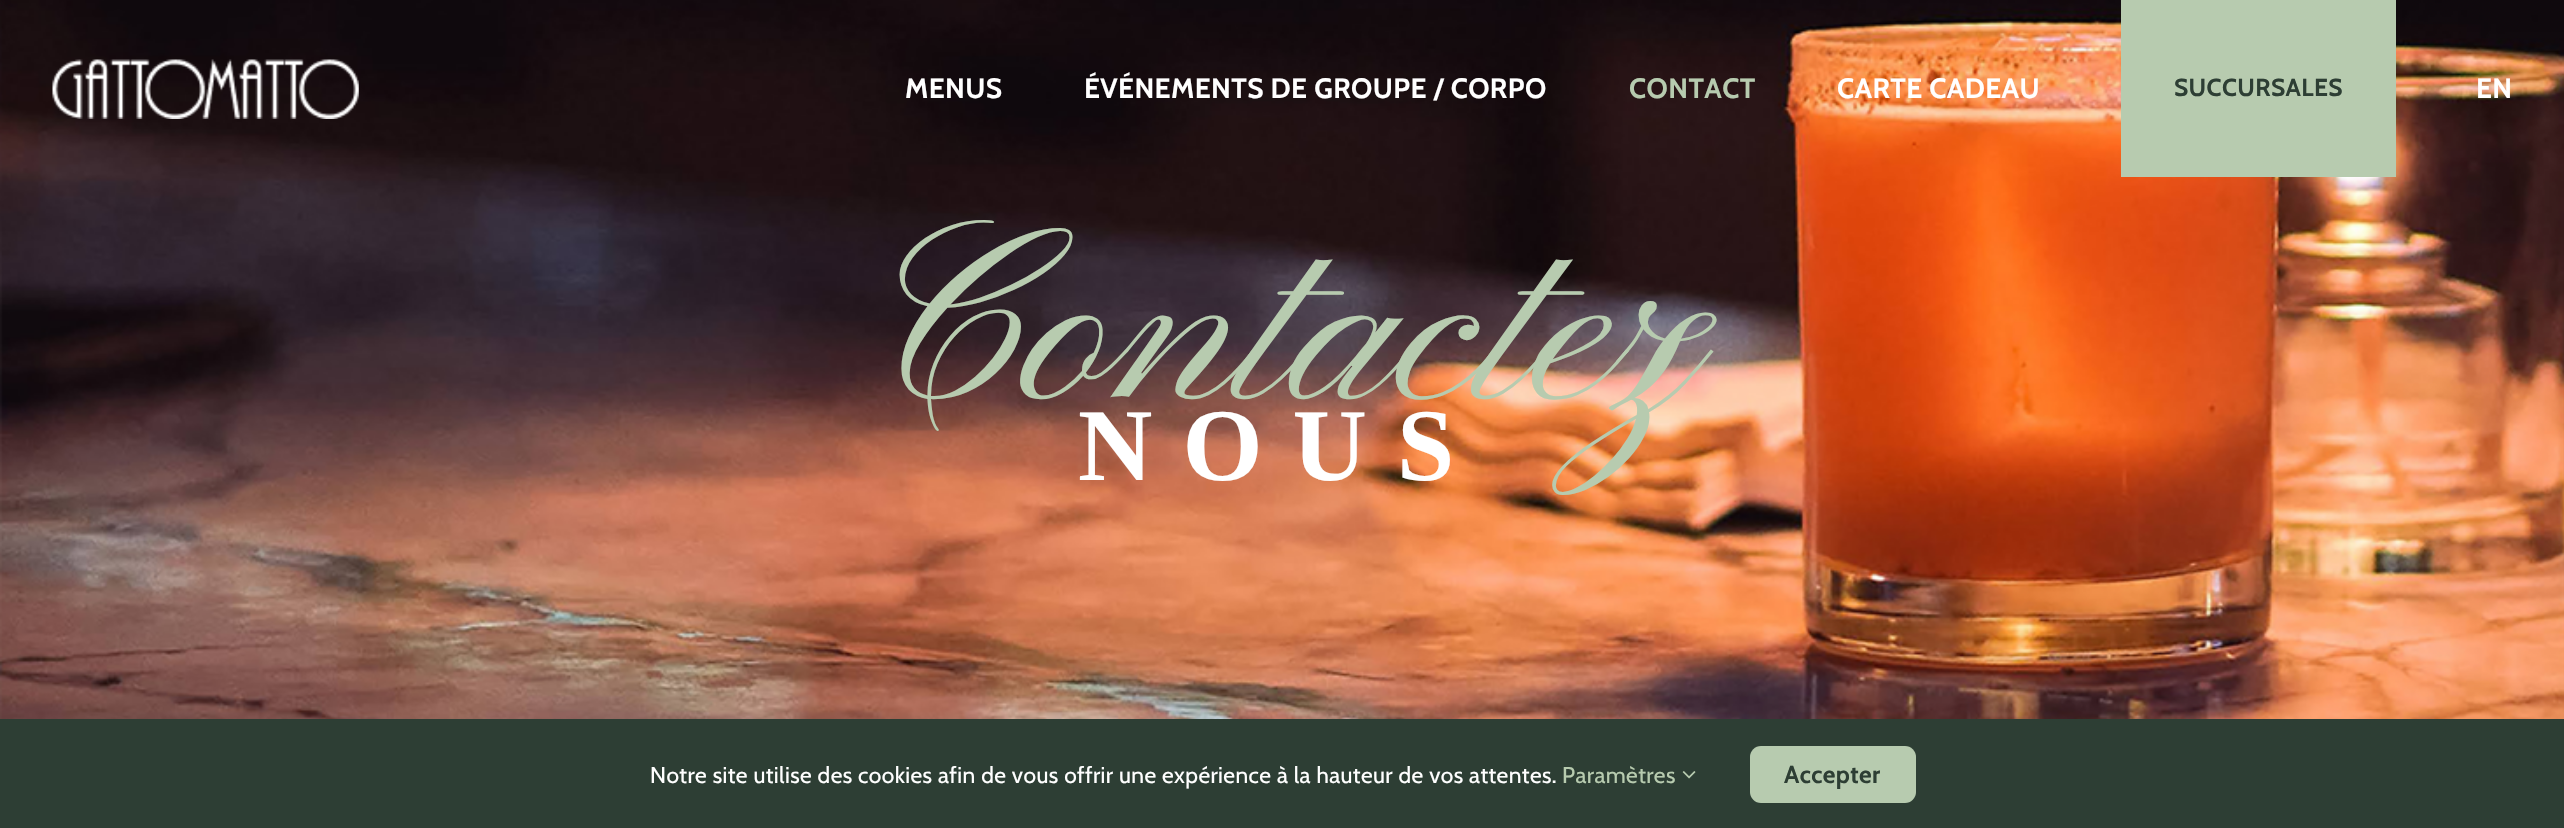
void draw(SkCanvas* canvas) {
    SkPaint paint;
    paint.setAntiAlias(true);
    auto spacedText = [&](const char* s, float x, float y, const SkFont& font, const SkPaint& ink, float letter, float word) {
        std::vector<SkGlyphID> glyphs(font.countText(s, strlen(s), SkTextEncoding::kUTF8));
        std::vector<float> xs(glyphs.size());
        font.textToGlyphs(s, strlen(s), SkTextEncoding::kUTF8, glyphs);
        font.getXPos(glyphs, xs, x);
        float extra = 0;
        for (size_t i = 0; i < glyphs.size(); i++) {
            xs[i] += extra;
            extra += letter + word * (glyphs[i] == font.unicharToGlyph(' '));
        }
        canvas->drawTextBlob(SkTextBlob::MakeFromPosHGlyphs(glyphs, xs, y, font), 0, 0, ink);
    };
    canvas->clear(0xFFFFFFFF);
    canvas->drawImageRect(SkImages::DeferredFromEncodedData(SkData::MakeFromFileName("img2.png")), SkRect::MakeXYWH(0, 0, 2564, 719), SkSamplingOptions());
    canvas->drawImageRect(SkImages::DeferredFromEncodedData(SkData::MakeFromFileName("img1.png")), SkRect::MakeXYWH(52, 59, 307, 60), SkSamplingOptions());
    SkFont font1(fontMgr->matchFamilyStyle("Cabin", SkFontStyle::Bold()), 28);
    font1.setSubpixel(true);
    paint.setColor(0xFFFFFFFF);
    spacedText("MENUS", 905, 98, font1, paint, 0.42f, 0);
    spacedText("ÉVÉNEMENTS DE GROUPE / CORPO", 1084, 98, font1, paint, 0.42f, 0);
    paint.setColor(0xFFB7CBAF);
    spacedText("CONTACT", 1629, 98, font1, paint, 0.42f, 0);
    paint.setColor(0xFFFFFFFF);
    spacedText("CARTE CADEAU", 1837, 98, font1, paint, 0.42f, 0);
    paint.setColor(0xFFB7CBAF);
    canvas->drawRect(SkRect::MakeXYWH(2121, 0, 275, 177), paint);
    SkFont font2(fontMgr->matchFamilyStyle("Cabin", SkFontStyle::Bold()), 24.5f);
    font2.setSubpixel(true);
    paint.setColor(0xFF2D3E34);
    spacedText("SUCCURSALES", 2174, 96, font2, paint, 0.4f, 0);
    paint.setColor(0xFFFFFFFF);
    spacedText("EN", 2476, 98, font1, paint, 0.42f, 0);
    SkFont font3(fontMgr->matchFamilyStyle("Pinyon Script", SkFontStyle::Normal()), 250);
    font3.setSubpixel(true);
    paint.setColor(0xFFB7CBAF);
    canvas->drawString("Contactez", 863, 399, font3, paint);
    SkFont font4(fontMgr->matchFamilyStyle("Liberation Serif", SkFontStyle::Bold()), 103);
    font4.setSubpixel(true);
    paint.setColor(0xFFFFFFFF);
    spacedText("NOUS", 1078, 480, font4, paint, 30, 0);
    paint.setColor(0xFF2D3E34);
    canvas->drawRect(SkRect::MakeXYWH(0, 719, 2564, 109), paint);
    SkFont font5(fontMgr->matchFamilyStyle("Cabin", SkFontStyle::Normal()), 22.75f);
    font5.setSubpixel(true);
    paint.setColor(0xFFFFFFFF);
    spacedText("Notre site utilise des cookies afin de vous offrir une expérience à la hauteur de vos attentes.", 650, 783, font5, paint, 0.42f, 0);
    paint.setColor(0xFFB7CBAF);
    spacedText("Paramètres", 1562, 783, font5, paint, 0.42f, 0);
    canvas->drawImageRect(SkImages::DeferredFromEncodedData(SkData::MakeFromFileName("img3.png")), SkRect::MakeXYWH(1682, 771, 14, 8), SkSamplingOptions());
    canvas->drawRoundRect(SkRect::MakeXYWH(1750, 746, 166, 57), 11, 11, paint);
    paint.setColor(0xFF2D3E34);
    spacedText("Accepter", 1784, 783, font2, paint, 0.4f, 0);
}
